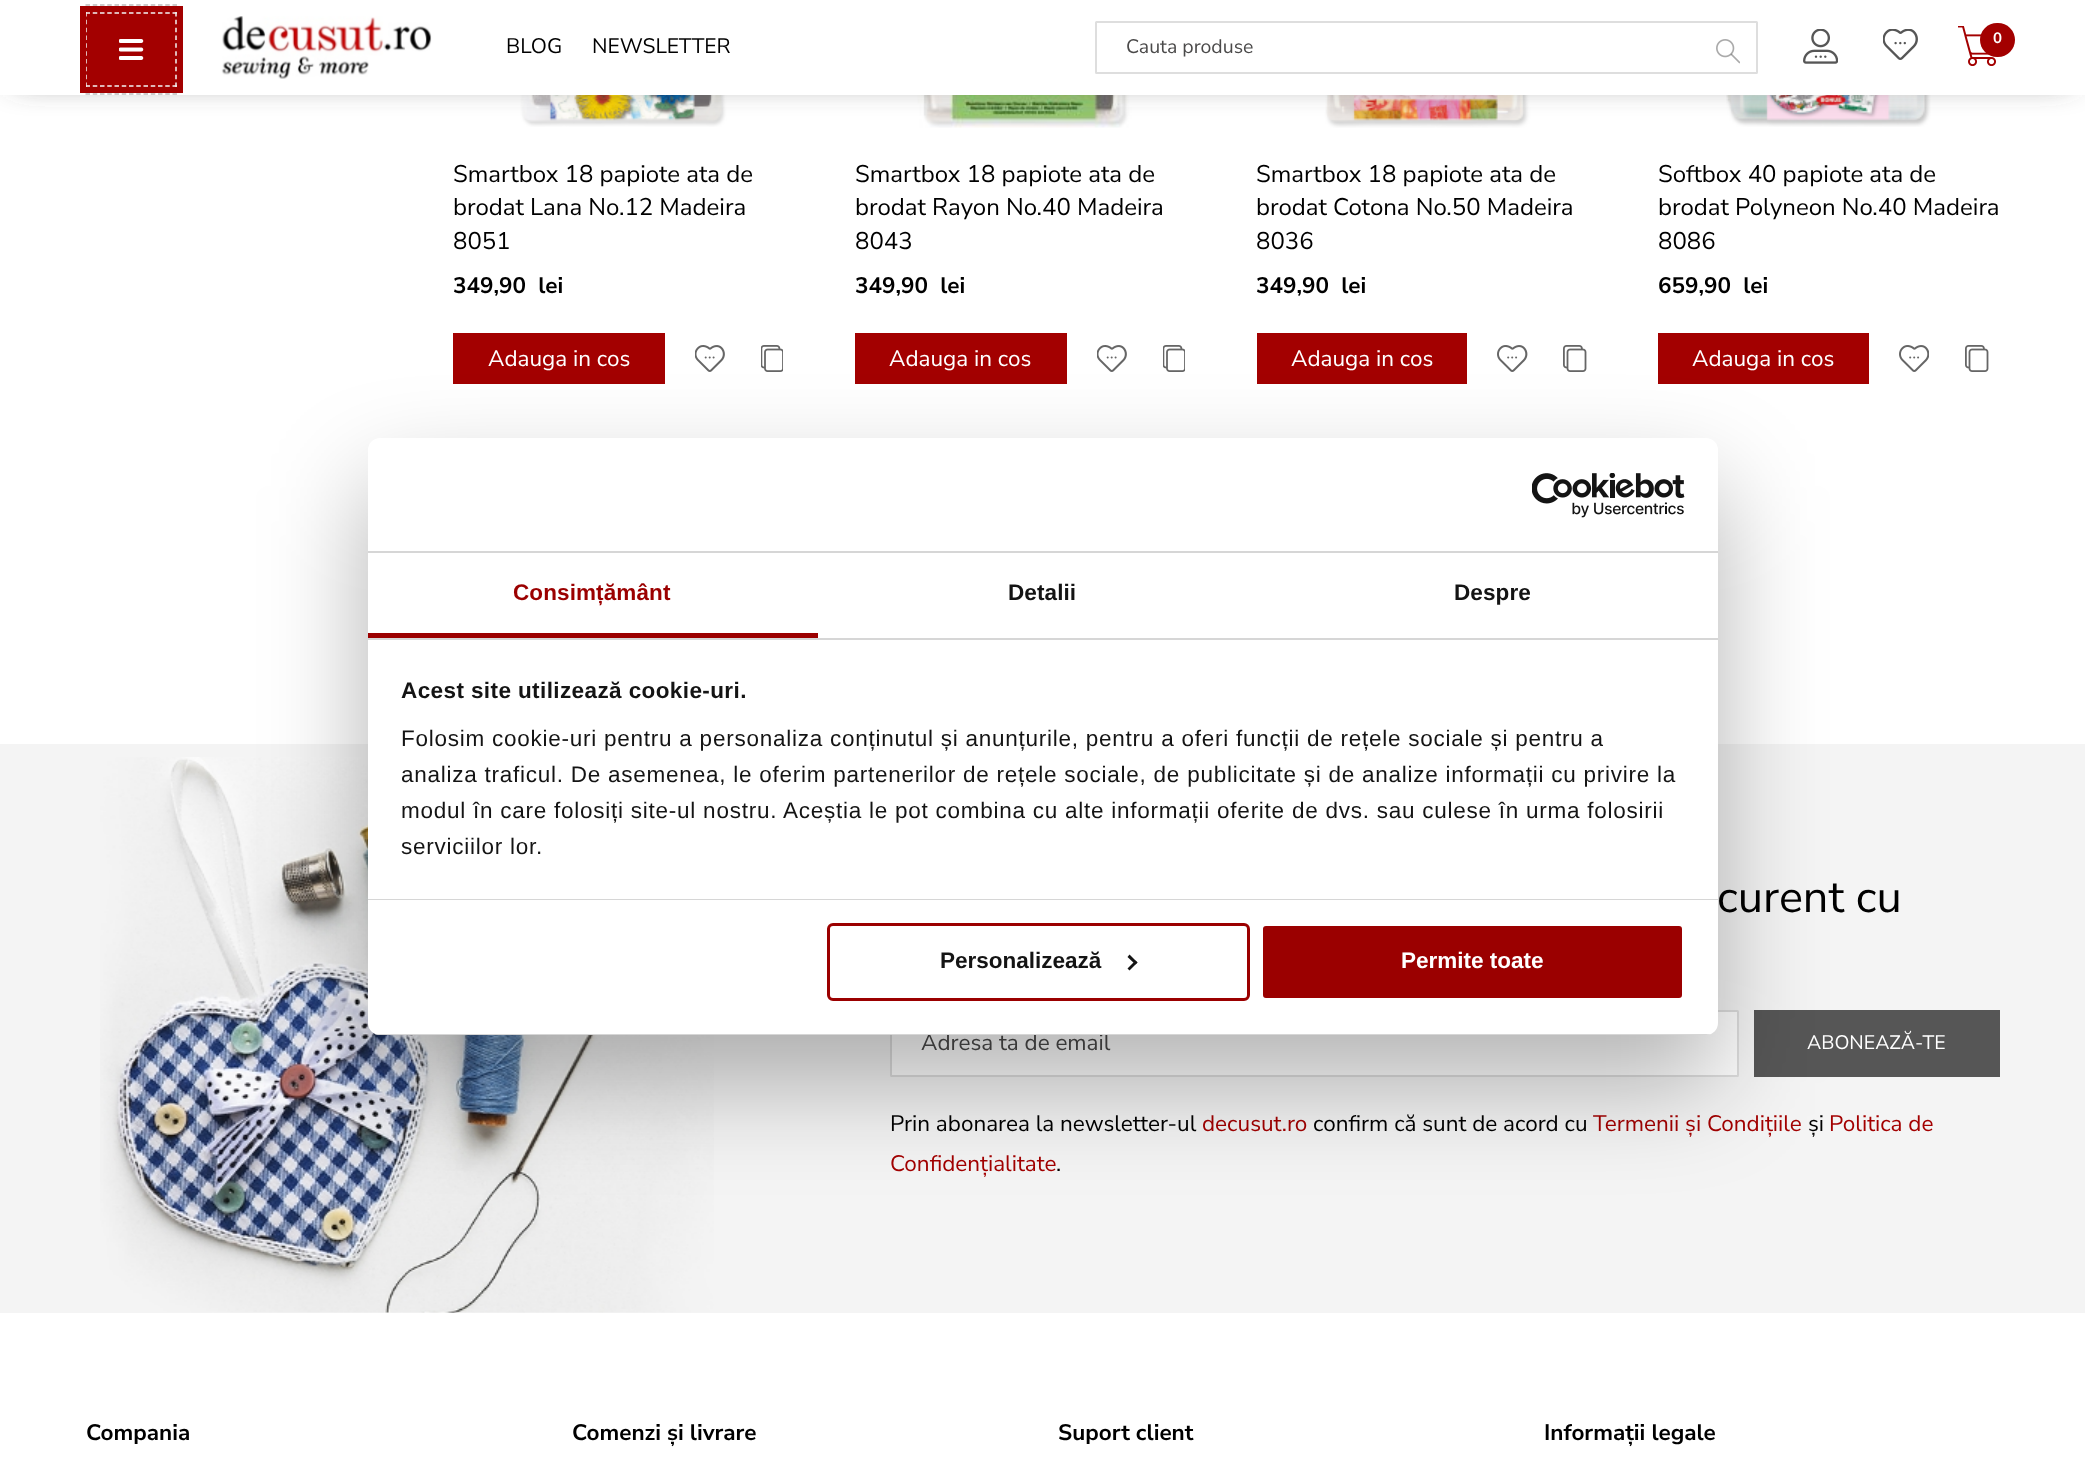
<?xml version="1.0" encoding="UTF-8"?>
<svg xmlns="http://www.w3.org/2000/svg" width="2085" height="1472">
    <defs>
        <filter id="blur1" x="-50%" y="-200%" width="200%" height="500%"><feGaussianBlur stdDeviation="16.5"/></filter>
        <filter id="blur2" x="-50%" y="-200%" width="200%" height="500%"><feGaussianBlur stdDeviation="51"/></filter>
        <clipPath id="clip1"><rect x="368" y="438" width="1350" height="597" rx="12"/></clipPath>
    </defs>
    <rect width="100%" height="100%" fill="#FFFFFF"/>
    <image x="519" y="95" width="212" height="32" href="img_07.png"/>
    <image x="917" y="95" width="218" height="33" href="img_10.png"/>
    <image x="1324" y="95" width="211" height="33" href="img_11.png"/>
    <image x="1726" y="95" width="206" height="32" href="img_14.png"/>
    <rect x="15" y="12" width="2055" height="65" fill="#4E4E4E" filter="url(#blur1)"/>
    <rect x="0" y="0" width="2085" height="95" fill="#FFFFFF"/>
    <path d="M 85.5 5 H 177" fill="none" stroke="#BDBDBD" stroke-width="1.5" stroke-dasharray="4.5 2.75"/>
    <path d="M 85.5 94 H 177" fill="none" stroke="#BDBDBD" stroke-width="1.5" stroke-dasharray="4.5 2.75"/>
    <rect x="86" y="12" width="91" height="75" fill="#A30000"/>
    <path d="M 85.5 13 H 177" fill="none" stroke="#F4F4F4" stroke-width="1.5" stroke-dasharray="4.5 2.75"/>
    <path d="M 176 12 V 87" fill="none" stroke="#F4F4F4" stroke-width="1.5" stroke-dasharray="4.5 3.33"/>
    <path d="M 85.5 86 H 177" fill="none" stroke="#F4F4F4" stroke-width="1.5" stroke-dasharray="4.5 2.75"/>
    <path d="M 86 12 V 87" fill="none" stroke="#F4F4F4" stroke-width="1.5" stroke-dasharray="4.5 3.33"/>
    <rect x="83" y="9" width="97" height="81" fill="none" stroke="#A30000" stroke-width="6"/>
    <image x="119" y="39" width="25" height="21" href="img_01.png"/>
    <image x="221" y="16" width="211" height="63" href="img_02.png"/>
    <text x="506" y="53" font-family="Nunito Sans" font-size="21" fill="#000000">BLOG</text>
    <text x="592" y="53" font-family="Nunito Sans" font-size="21" fill="#000000">NEWSLETTER</text>
    <rect x="1096" y="22" width="661" height="51" rx="0.5" fill="none" stroke="#DEDEDE" stroke-width="2"/>
    <text x="1126" y="53" font-family="Nunito Sans" font-size="19.5" fill="#4B4A4A">Cauta produse</text>
    <image x="1716" y="39" width="24" height="25" href="img_03.png"/>
    <image x="1803" y="29" width="35" height="35" href="img_04.png"/>
    <image x="1883" y="29" width="35" height="31" href="img_05.png"/>
    <image x="1958" y="26" width="38" height="40" href="img_06.png"/>
    <rect x="1980" y="23" width="35" height="34" rx="17" fill="#A30000"/>
    <text x="1993" y="43" font-family="Nunito Sans" font-size="15" font-weight="700" fill="#FFFFFF">0</text>
    <text font-family="Nunito Sans" font-size="24" fill="#000000">
        <tspan x="453" y="182">Smartbox 18 papiote ata de</tspan>
        <tspan x="453" y="215">brodat Lana No.12 Madeira</tspan>
        <tspan x="453" y="249">8051</tspan>
    </text>
    <text x="453" y="293" font-family="Nunito Sans" font-size="22.5" font-weight="700" fill="#000000" xml:space="preserve">349,90  lei</text>
    <rect x="453" y="333" width="212" height="51" fill="#A30000"/>
    <text x="488" y="366" font-family="Nunito Sans" font-size="22.5" fill="#FFFFFF">Adauga in cos</text>
    <image x="695" y="345" width="30" height="27" href="img_08.png"/>
    <image x="761" y="345" width="22" height="27" href="img_09.png"/>
    <text font-family="Nunito Sans" font-size="24" fill="#000000">
        <tspan x="855" y="182">Smartbox 18 papiote ata de</tspan>
        <tspan x="855" y="215">brodat Rayon No.40 Madeira</tspan>
        <tspan x="855" y="249">8043</tspan>
    </text>
    <text x="855" y="293" font-family="Nunito Sans" font-size="22.5" font-weight="700" fill="#000000" xml:space="preserve">349,90  lei</text>
    <rect x="855" y="333" width="212" height="51" fill="#A30000"/>
    <text x="889" y="366" font-family="Nunito Sans" font-size="22.5" fill="#FFFFFF">Adauga in cos</text>
    <image x="1097" y="345" width="30" height="27" href="img_08.png"/>
    <image x="1163" y="345" width="22" height="27" href="img_09.png"/>
    <text font-family="Nunito Sans" font-size="24" fill="#000000">
        <tspan x="1256" y="182">Smartbox 18 papiote ata de</tspan>
        <tspan x="1256" y="215">brodat Cotona No.50 Madeira</tspan>
        <tspan x="1256" y="249">8036</tspan>
    </text>
    <text x="1256" y="293" font-family="Nunito Sans" font-size="22.5" font-weight="700" fill="#000000" xml:space="preserve">349,90  lei</text>
    <rect x="1257" y="333" width="210" height="51" fill="#A30000"/>
    <text x="1291" y="366" font-family="Nunito Sans" font-size="22.5" fill="#FFFFFF">Adauga in cos</text>
    <image x="1497" y="345" width="31" height="27" href="img_12.png"/>
    <image x="1563" y="345" width="24" height="27" href="img_13.png"/>
    <text font-family="Nunito Sans" font-size="24" fill="#000000">
        <tspan x="1658" y="182">Softbox 40 papiote ata de</tspan>
        <tspan x="1658" y="215">brodat Polyneon No.40 Madeira</tspan>
        <tspan x="1658" y="249">8086</tspan>
    </text>
    <text x="1658" y="293" font-family="Nunito Sans" font-size="22.5" font-weight="700" fill="#000000" xml:space="preserve">659,90  lei</text>
    <rect x="1658" y="333" width="211" height="51" fill="#A30000"/>
    <text x="1692" y="366" font-family="Nunito Sans" font-size="22.5" fill="#FFFFFF">Adauga in cos</text>
    <image x="1899" y="345" width="30" height="27" href="img_15.png"/>
    <image x="1965" y="345" width="24" height="27" href="img_13.png"/>
    <rect x="0" y="744" width="2085" height="569" fill="#F4F4F4"/>
    <image x="100" y="757" width="614" height="556" href="img_16.png"/>
    <text x="1717" y="912" font-family="Nunito Sans" font-size="45" fill="#000000">curent cu</text>
    <rect x="891" y="1011" width="847" height="65" rx="0.5" fill="#FFFFFF" stroke="#DEDEDE" stroke-width="2"/>
    <text x="921" y="1050" font-family="Nunito Sans" font-size="22.5" fill="#4B4A4A">Adresa ta de email</text>
    <rect x="1754" y="1010" width="246" height="67" fill="#565656"/>
    <text x="1807" y="1049" font-family="Nunito Sans" font-size="19.5" fill="#FFFFFF">ABONEAZĂ-TE</text>
    <text x="890" y="1131" font-family="Nunito Sans" font-size="22.5" fill="#000000">Prin abonarea la newsletter-ul</text>
    <text x="1202" y="1131" font-family="Nunito Sans" font-size="22.5" fill="#A30000">decusut.ro</text>
    <text x="1313" y="1131" font-family="Nunito Sans" font-size="22.5" fill="#000000">confirm că sunt de acord cu</text>
    <text x="1593" y="1131" font-family="Nunito Sans" font-size="22.5" fill="#A30000">Termenii și Condițiile</text>
    <text x="1808" y="1131" font-family="Nunito Sans" font-size="22.5" fill="#000000">și</text>
    <text x="1829" y="1131" font-family="Nunito Sans" font-size="22.5" fill="#A30000">Politica de</text>
    <text x="890" y="1171" font-family="Nunito Sans" font-size="22.5" fill="#A30000">Confidențialitate</text>
    <text x="1056" y="1171" font-family="Nunito Sans" font-size="22.5" fill="#000000">.</text>
    <text x="86" y="1440" font-family="Nunito Sans" font-size="22.5" font-weight="700" fill="#000000">Compania</text>
    <text x="572" y="1440" font-family="Nunito Sans" font-size="22.5" font-weight="700" fill="#000000">Comenzi și livrare</text>
    <text x="1058" y="1440" font-family="Nunito Sans" font-size="22.5" font-weight="700" fill="#000000">Suport client</text>
    <text x="1544" y="1440" font-family="Nunito Sans" font-size="22.5" font-weight="700" fill="#000000">Informații legale</text>
    <rect x="368" y="486" width="1350" height="597" rx="12" fill="#000000" fill-opacity="0.3" filter="url(#blur2)"/>
    <rect x="368" y="438" width="1350" height="597" rx="12" fill="#FFFFFF"/>
    <rect x="368" y="551" width="1350" height="2" fill="#D6D6D6"/>
    <image x="1532" y="473" width="153" height="45" href="img_17.png"/>
    <rect x="368" y="638" width="1350" height="2" fill="#D6D6D6"/>
    <rect x="368" y="633" width="450" height="5" fill="#9B0000"/>
    <text x="513" y="600" font-family="Liberation Sans" font-size="22.5" font-weight="700" letter-spacing="0.1" fill="#9B0000">Consimțământ</text>
    <text x="1008" y="600" font-family="Liberation Sans" font-size="22.5" font-weight="700" letter-spacing="0.1" fill="#141414">Detalii</text>
    <text x="1454" y="600" font-family="Liberation Sans" font-size="22.5" font-weight="700" letter-spacing="0.1" fill="#141414">Despre</text>
    <rect x="368" y="899" width="1350" height="1" fill="#D6D6D6"/>
    <text x="401" y="698" font-family="Liberation Sans" font-size="22.5" font-weight="700" letter-spacing="0.4" fill="#141414">Acest site utilizează cookie-uri.</text>
    <text font-family="Liberation Sans" font-size="22.5" letter-spacing="0.75" fill="#141414">
        <tspan x="401" y="746">Folosim cookie-uri pentru a personaliza conținutul și anunțurile, pentru a oferi funcții de rețele sociale și pentru a</tspan>
        <tspan x="401" y="782">analiza traficul. De asemenea, le oferim partenerilor de rețele sociale, de publicitate și de analize informații cu privire la</tspan>
        <tspan x="401" y="818">modul în care folosiți site-ul nostru. Aceștia le pot combina cu alte informații oferite de dvs. sau culese în urma folosirii</tspan>
        <tspan x="401" y="854">serviciilor lor.</tspan>
    </text>
    <g clip-path="url(#clip1)">
        <rect x="368" y="1034" width="1350" height="1" fill="#D6D6D6"/>
    </g>
    <rect x="828.5" y="924.5" width="420" height="75" rx="4.5" fill="none" stroke="#9B0000" stroke-width="3"/>
    <text x="940" y="968" font-family="Liberation Sans" font-size="22.5" font-weight="700" fill="#141414">Personalizează</text>
    <path d="M 1129.5 954.5 L 1137.5 962.5 L 1135.5 964.5 L 1127.5 957 Z" fill="#141414"/>
    <path d="M 1135.5 960.5 L 1137.5 962.5 L 1129.5 970.5 L 1127.5 968.5 Z" fill="#141414"/>
    <rect x="1261.5" y="924.5" width="422" height="75" rx="4.5" fill="#9B0000" stroke="#FFFFFF" stroke-width="3"/>
    <text x="1401" y="968" font-family="Liberation Sans" font-size="22.5" font-weight="700" fill="#FFFFFF">Permite toate</text>
</svg>
